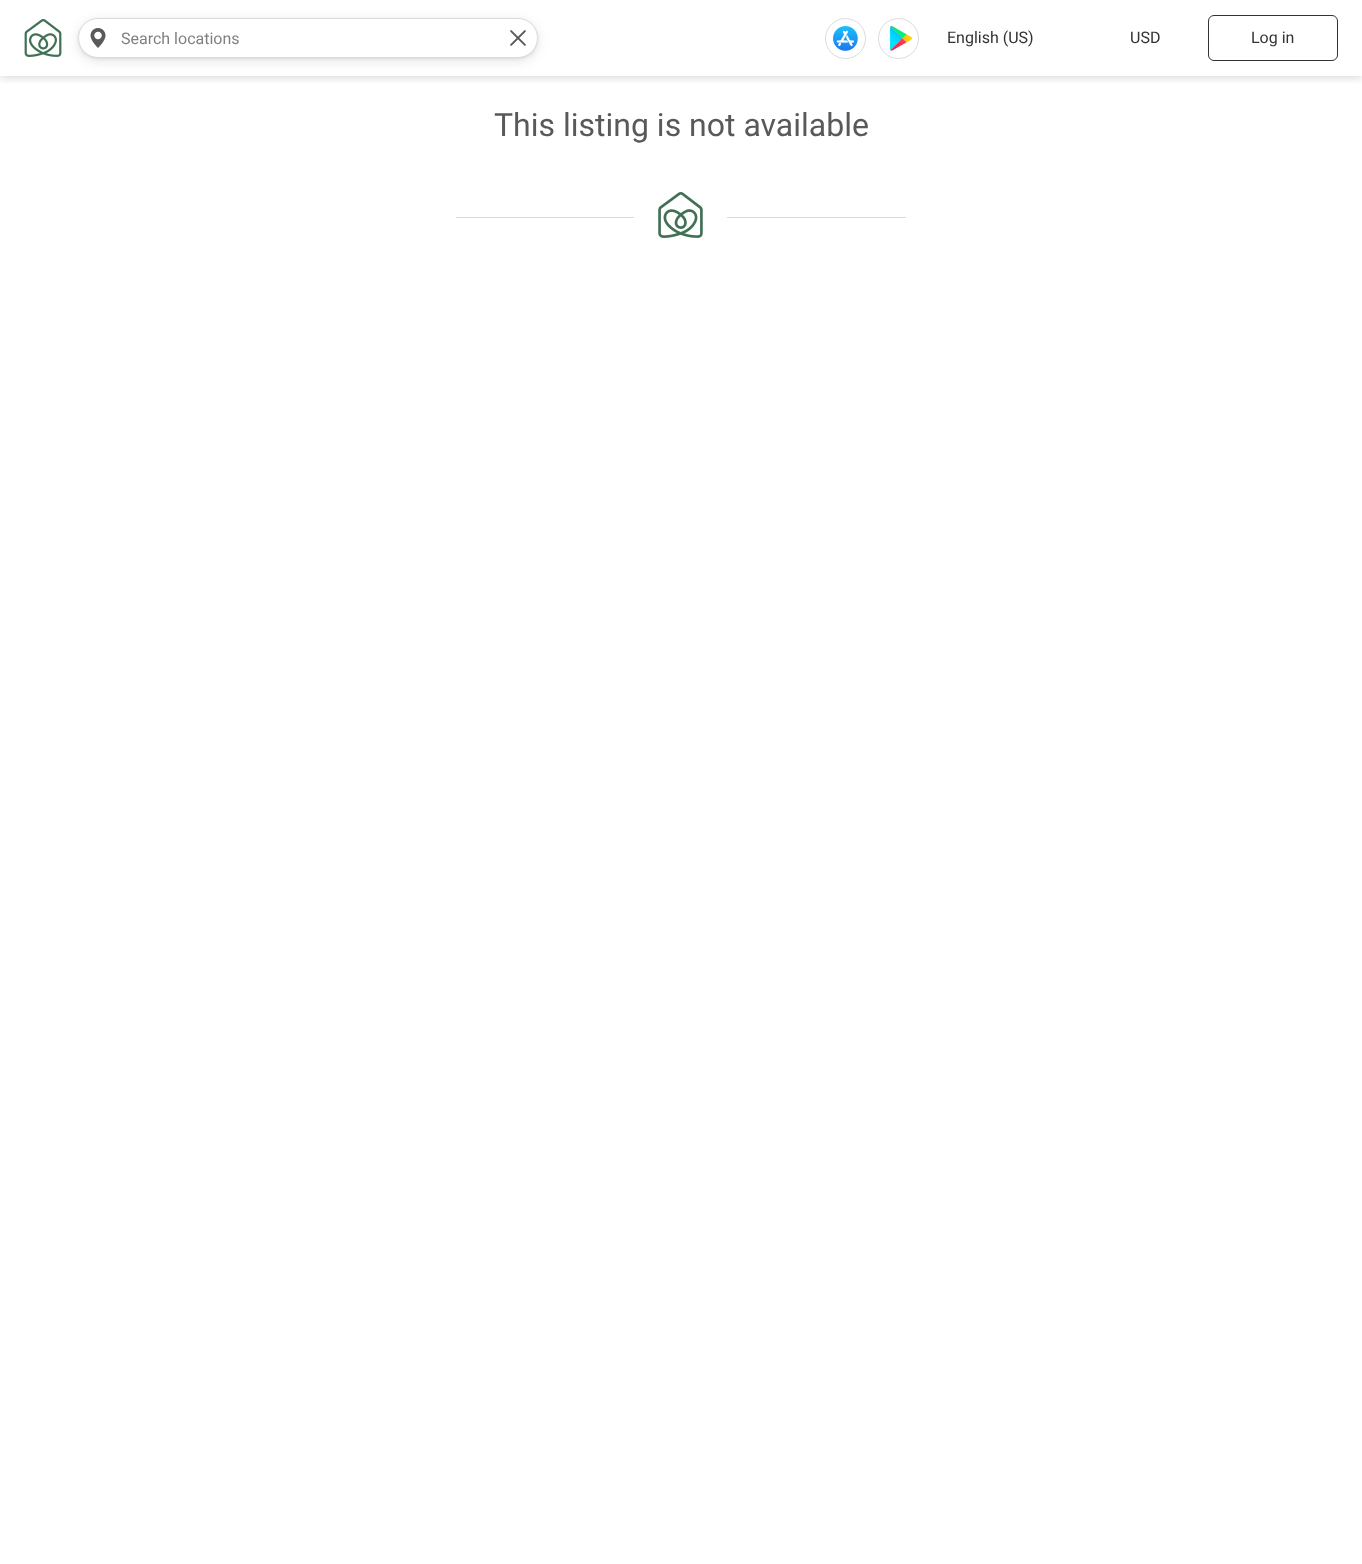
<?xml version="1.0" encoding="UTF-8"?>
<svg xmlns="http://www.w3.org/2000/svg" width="1362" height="1564">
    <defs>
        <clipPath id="clip1"><rect x="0" y="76" width="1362" height="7"/></clipPath>
        <filter id="blur1" x="-50%" y="-200%" width="200%" height="500%"><feGaussianBlur stdDeviation="4.5"/></filter>
        <filter id="blur2" x="-50%" y="-200%" width="200%" height="500%"><feGaussianBlur stdDeviation="1"/></filter>
        <filter id="blur3" x="-50%" y="-200%" width="200%" height="500%"><feGaussianBlur stdDeviation="6"/></filter>
    </defs>
    <rect width="100%" height="100%" fill="#FFFFFF"/>
    <g clip-path="url(#clip1)">
        <rect x="0" y="2" width="1362" height="76" fill="#000000" fill-opacity="0.15" filter="url(#blur1)"/>
    </g>
    <image x="24" y="19" width="38" height="38" href="img_01.png"/>
    <rect x="78" y="19" width="460" height="40" rx="20" fill="#000000" fill-opacity="0.08" filter="url(#blur2)"/>
    <rect x="78" y="21" width="460" height="40" rx="20" fill="#000000" fill-opacity="0.1" filter="url(#blur3)"/>
    <rect x="78.5" y="18.5" width="459" height="39" rx="19.5" fill="#FFFFFF" stroke="#DBDBDB"/>
    <image x="90" y="28" width="16" height="20" href="img_02.png"/>
    <text x="121" y="44" font-family="Roboto" font-size="16" fill="#808080">Search locations</text>
    <image x="510" y="30" width="16" height="16" href="img_03.png"/>
    <circle cx="845.5" cy="38.5" r="20" fill="none" stroke="#DBDBDB"/>
    <image x="833" y="26" width="25" height="25" href="img_04.png"/>
    <circle cx="898.5" cy="38.5" r="20" fill="none" stroke="#DBDBDB"/>
    <image x="890" y="26" width="23" height="25" href="img_05.png"/>
    <text x="947" y="43" font-family="Roboto" font-size="16" fill="#333333">English (US)</text>
    <text x="1130" y="43" font-family="Roboto" font-size="16" fill="#333333">USD</text>
    <rect x="1208.5" y="15.5" width="129" height="45" rx="5.5" fill="none" stroke="#333333"/>
    <text x="1251" y="43" font-family="Roboto" font-size="16" fill="#333333">Log in</text>
    <text x="494" y="136" font-family="Roboto" font-size="32" fill="#595959">This listing is not available</text>
    <rect x="456" y="217" width="178" height="1" fill="#DBDBDB"/>
    <image x="658" y="192" width="45" height="46" href="img_06.png"/>
    <rect x="727" y="217" width="179" height="1" fill="#DBDBDB"/>
</svg>
